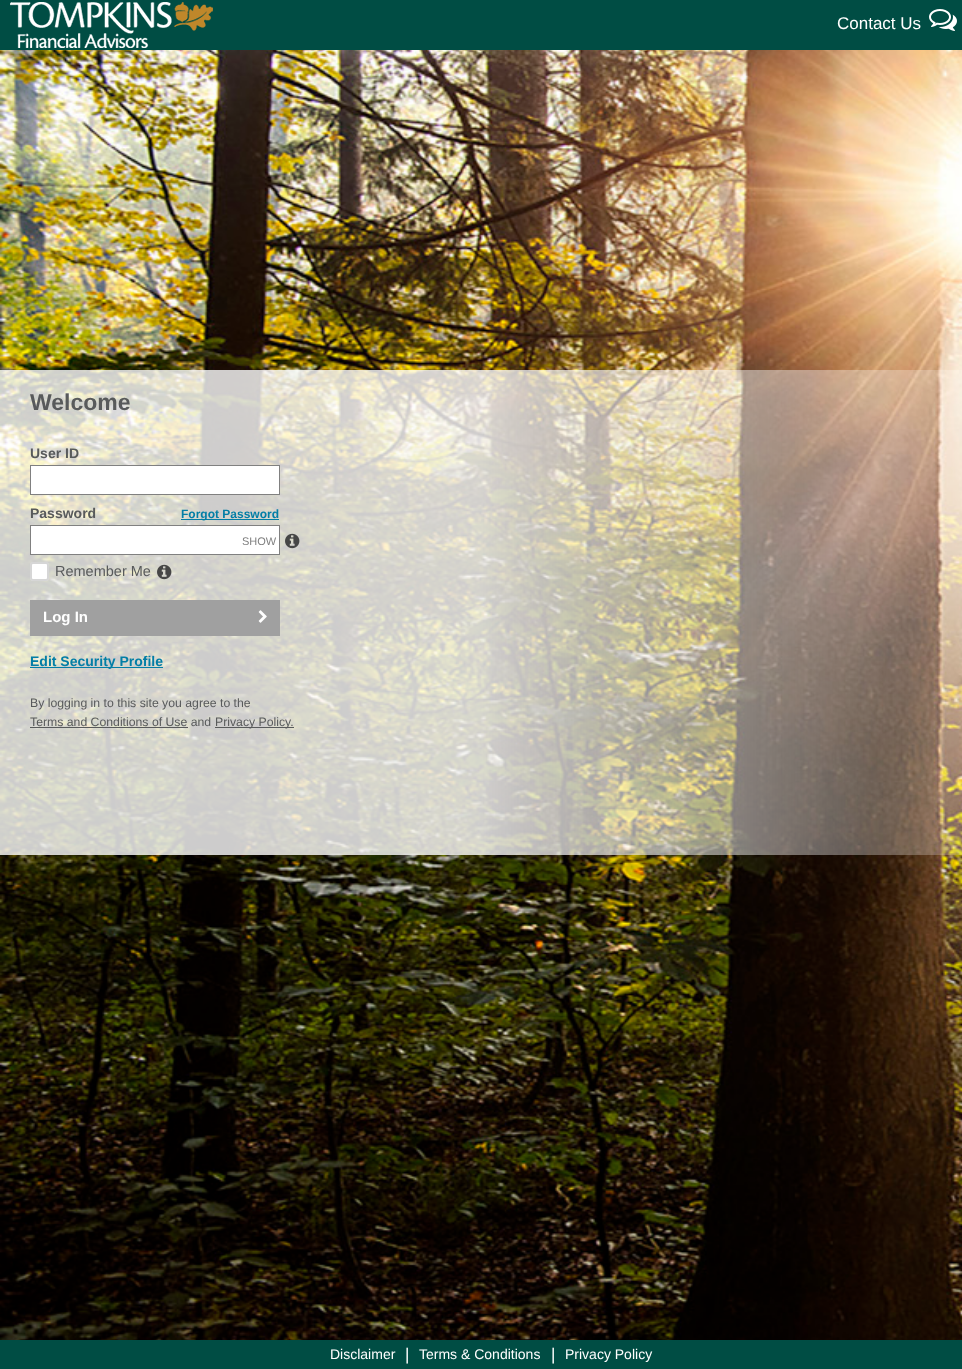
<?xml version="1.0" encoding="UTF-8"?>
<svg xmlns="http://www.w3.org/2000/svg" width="962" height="1369">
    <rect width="100%" height="100%" fill="#FFFFFF"/>
    <image x="0" y="50" width="962" height="1290" href="img_01.png"/>
    <rect x="0" y="0" width="962" height="50" fill="#004D44"/>
    <image x="10" y="2" width="203" height="46" href="img_02.png"/>
    <text x="837" y="29" font-family="Liberation Sans" font-size="17" fill="#FFFFFF">Contact Us</text>
    <image x="929" y="9" width="28" height="22" href="img_03.png"/>
    <text x="30" y="410" font-family="Liberation Sans" font-size="23" font-weight="700" fill="#585A5B">Welcome</text>
    <text x="30" y="458" font-family="Liberation Sans" font-size="14" font-weight="700" fill="#585A5B">User ID</text>
    <rect x="30.5" y="465.5" width="249" height="29" fill="#FFFFFF" stroke="#808080"/>
    <text x="30" y="518" font-family="Liberation Sans" font-size="14" font-weight="700" fill="#585A5B">Password</text>
    <rect x="181" y="519" width="98" height="1" fill="#037EA6"/>
    <text x="181" y="518" font-family="Liberation Sans" font-size="12" font-weight="700" fill="#037EA6">Forgot Password</text>
    <rect x="30.5" y="525.5" width="249" height="29" fill="#FFFFFF" stroke="#808080"/>
    <image x="285" y="533" width="15" height="16" href="img_04.png"/>
    <text x="242" y="545" font-family="Liberation Sans" font-size="11" fill="#808080">SHOW</text>
    <rect x="30" y="562" width="19" height="19" rx="3" fill="#FFFFFF"/>
    <rect x="31" y="563" width="17" height="17" rx="2" fill="none" stroke="#767676" stroke-opacity="0.3" stroke-width="2"/>
    <text x="55" y="576" font-family="Liberation Sans" font-size="14.5" fill="#585A5B">Remember Me</text>
    <image x="157" y="564" width="15" height="16" href="img_05.png"/>
    <rect x="30" y="600" width="250" height="36" fill="#A0A0A0"/>
    <text x="43" y="622" font-family="Liberation Sans" font-size="15" font-weight="700" fill="#FFFFFF">Log In</text>
    <image x="258" y="610" width="9" height="13" href="img_06.png"/>
    <rect x="30" y="667" width="133" height="1" fill="#037EA6"/>
    <text x="30" y="666" font-family="Liberation Sans" font-size="14" font-weight="700" fill="#037EA6">Edit Security Profile</text>
    <text font-family="Liberation Sans" font-size="12.25" fill="#585A5B">
        <tspan x="30" y="707">By logging in to this site you agree to the</tspan>
        <tspan x="30" y="726">Terms and Conditions of Use and</tspan>
    </text>
    <rect x="30" y="727" width="158" height="1" fill="#585A5B"/>
    <rect x="215" y="727" width="79" height="1" fill="#585A5B"/>
    <text x="215" y="726" font-family="Liberation Sans" font-size="12.25" fill="#585A5B">Privacy Policy.</text>
    <rect x="0" y="1340" width="962" height="29" fill="#004D44"/>
    <text x="330" y="1359" font-family="Liberation Sans" font-size="14" fill="#FFFFFF">Disclaimer</text>
    <text x="405" y="1360" font-family="Liberation Sans" font-size="17" fill="#FFFFFF">|</text>
    <text x="419" y="1359" font-family="Liberation Sans" font-size="14" fill="#FFFFFF">Terms &amp; Conditions</text>
    <text x="551" y="1360" font-family="Liberation Sans" font-size="17" fill="#FFFFFF">|</text>
    <text x="565" y="1359" font-family="Liberation Sans" font-size="14" fill="#FFFFFF">Privacy Policy</text>
</svg>
